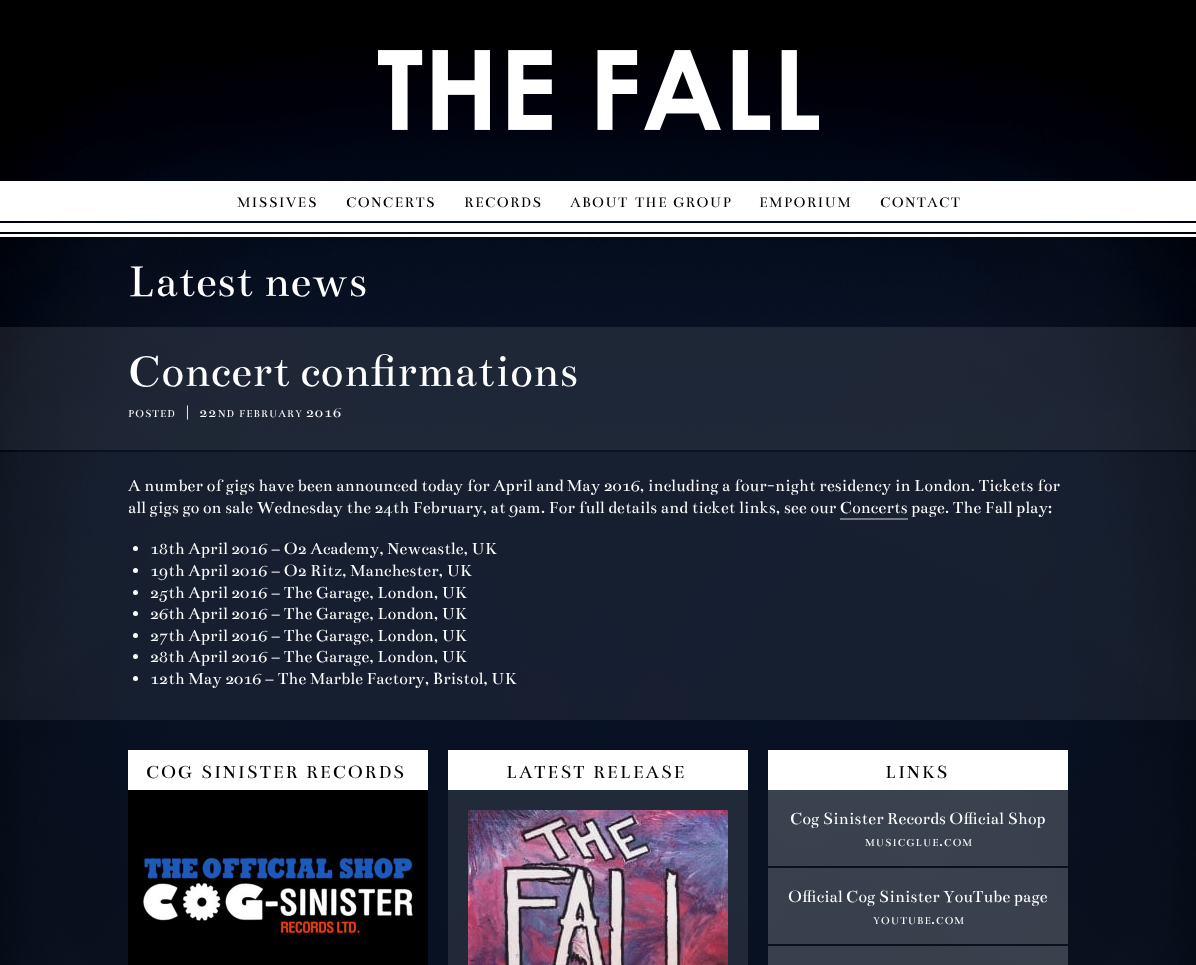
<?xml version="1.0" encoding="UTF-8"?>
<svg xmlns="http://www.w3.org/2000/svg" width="1196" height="965">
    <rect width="100%" height="100%" fill="#FFFFFF"/>
    <image x="0" y="0" width="1196" height="965" href="img_01.png"/>
    <image x="378" y="50" width="441" height="80" href="img_02.png"/>
    <rect x="0" y="223" width="1196" height="9" fill="#FFFFFF"/>
    <rect x="0" y="181" width="1196" height="40" fill="#FFFFFF"/>
    <text x="237" y="207" font-family="Bentham" font-size="15.5" letter-spacing="1.25" fill="#000000">MISSIVES</text>
    <text x="346" y="207" font-family="Bentham" font-size="15.5" letter-spacing="1.25" fill="#000000">CONCERTS</text>
    <text x="464" y="207" font-family="Bentham" font-size="15.5" letter-spacing="1.25" fill="#000000">RECORDS</text>
    <text x="570" y="207" font-family="Bentham" font-size="15.5" letter-spacing="1.25" fill="#000000">ABOUT</text>
    <text x="635" y="207" font-family="Bentham" font-size="15.5" letter-spacing="1.25" fill="#000000">THE</text>
    <text x="673" y="207" font-family="Bentham" font-size="15.5" letter-spacing="1.25" fill="#000000">GROUP</text>
    <text x="759" y="207" font-family="Bentham" font-size="15.5" letter-spacing="1.25" fill="#000000">EMPORIUM</text>
    <text x="880" y="207" font-family="Bentham" font-size="15.5" letter-spacing="1.25" fill="#000000">CONTACT</text>
    <rect x="0" y="234" width="1196" height="3" fill="#FFFFFF"/>
    <text x="128" y="296" font-family="Bentham" font-size="48" fill="#FFFFFF">Latest news</text>
    <rect x="0" y="327" width="1196" height="123" fill="#FFFFFF" fill-opacity="0.09"/>
    <text x="128" y="386" font-family="Bentham" font-size="48" fill="#FFFFFF">Concert confirmations</text>
    <text x="128" y="417" font-family="Bentham" font-size="11.25" letter-spacing="1" fill="#FFFFFF">POSTED</text>
    <text x="185" y="417" font-family="Bentham" font-size="16" letter-spacing="1" fill="#FFFFFF" xml:space="preserve">|  22</text>
    <text x="218" y="417" font-family="Bentham" font-size="11.25" letter-spacing="1" fill="#FFFFFF">ND</text>
    <text x="239" y="417" font-family="Bentham" font-size="11.25" letter-spacing="1" fill="#FFFFFF">FEBRUARY</text>
    <text x="306" y="417" font-family="Bentham" font-size="16" letter-spacing="1" fill="#FFFFFF">2016</text>
    <rect x="0" y="452" width="1196" height="268" fill="#FFFFFF" fill-opacity="0.06"/>
    <text font-family="Bentham" font-size="18" fill="#FFFFFF">
        <tspan x="128" y="491">A number of gigs have been announced today for April and May 2016, including a four-night residency in London. Tickets for</tspan>
        <tspan x="128" y="513">all gigs go on sale Wednesday the 24th February, at 9am. For full details and ticket links, see our Concerts page. The Fall play:</tspan>
    </text>
    <rect x="840" y="518" width="68" height="2" fill="#747A84"/>
    <circle cx="135.5" cy="548.5" r="2.5" fill="#FFFFFF"/>
    <text x="150" y="554" font-family="Bentham" font-size="18" fill="#FFFFFF">18th April 2016 – O2 Academy, Newcastle, UK</text>
    <circle cx="135.5" cy="570.5" r="2.5" fill="#FFFFFF"/>
    <text x="150" y="576" font-family="Bentham" font-size="18" fill="#FFFFFF">19th April 2016 – O2 Ritz, Manchester, UK</text>
    <circle cx="135.5" cy="592.5" r="2.5" fill="#FFFFFF"/>
    <text x="150" y="598" font-family="Bentham" font-size="18" fill="#FFFFFF">25th April 2016 – The Garage, London, UK</text>
    <circle cx="135.5" cy="613.5" r="2.5" fill="#FFFFFF"/>
    <text x="150" y="619" font-family="Bentham" font-size="18" fill="#FFFFFF">26th April 2016 – The Garage, London, UK</text>
    <circle cx="135.5" cy="635.5" r="2.5" fill="#FFFFFF"/>
    <text x="150" y="641" font-family="Bentham" font-size="18" fill="#FFFFFF">27th April 2016 – The Garage, London, UK</text>
    <circle cx="135.5" cy="656.5" r="2.5" fill="#FFFFFF"/>
    <text x="150" y="662" font-family="Bentham" font-size="18" fill="#FFFFFF">28th April 2016 – The Garage, London, UK</text>
    <circle cx="135.5" cy="678.5" r="2.5" fill="#FFFFFF"/>
    <text x="150" y="684" font-family="Bentham" font-size="18" fill="#FFFFFF">12th May 2016 – The Marble Factory, Bristol, UK</text>
    <rect x="128" y="750" width="300" height="40" fill="#FFFFFF"/>
    <text x="146" y="778" font-family="Bentham" font-size="19.5" letter-spacing="1.75" fill="#000000">COG</text>
    <text x="201" y="778" font-family="Bentham" font-size="19.5" letter-spacing="1.75" fill="#000000">SINISTER</text>
    <text x="306" y="778" font-family="Bentham" font-size="19.5" letter-spacing="1.75" fill="#000000">RECORDS</text>
    <image x="128" y="790" width="300" height="175" href="img_03.png"/>
    <rect x="448" y="750" width="300" height="40" fill="#FFFFFF"/>
    <text x="506" y="778" font-family="Bentham" font-size="19.5" letter-spacing="1.75" fill="#000000">LATEST</text>
    <text x="593" y="778" font-family="Bentham" font-size="19.5" letter-spacing="1.75" fill="#000000">RELEASE</text>
    <rect x="448" y="790" width="300" height="175" fill="#FFFFFF" fill-opacity="0.1"/>
    <image x="468" y="810" width="260" height="155" href="img_04.png"/>
    <rect x="768" y="750" width="300" height="40" fill="#FFFFFF"/>
    <text x="885" y="778" font-family="Bentham" font-size="19.5" letter-spacing="1.75" fill="#000000">LINKS</text>
    <rect x="768" y="790" width="300" height="76" fill="#FFFFFF" fill-opacity="0.2"/>
    <text x="790" y="824" font-family="Bentham" font-size="18" fill="#FFFFFF">Cog Sinister Records Official Shop</text>
    <text x="865" y="846" font-family="Bentham" font-size="11.25" letter-spacing="1" fill="#FFFFFF">MUSICGLUE</text>
    <text x="939" y="846" font-family="Bentham" font-size="16" letter-spacing="1" fill="#FFFFFF">.</text>
    <text x="944" y="846" font-family="Bentham" font-size="11.25" letter-spacing="1" fill="#FFFFFF">COM</text>
    <rect x="768" y="868" width="300" height="76" fill="#FFFFFF" fill-opacity="0.2"/>
    <text x="788" y="902" font-family="Bentham" font-size="18" fill="#FFFFFF">Official Cog Sinister YouTube page</text>
    <text x="873" y="924" font-family="Bentham" font-size="11.25" letter-spacing="1" fill="#FFFFFF">YOUTUBE</text>
    <text x="931" y="924" font-family="Bentham" font-size="16" letter-spacing="1" fill="#FFFFFF">.</text>
    <text x="936" y="924" font-family="Bentham" font-size="11.25" letter-spacing="1" fill="#FFFFFF">COM</text>
    <rect x="768" y="946" width="300" height="19" fill="#FFFFFF" fill-opacity="0.2"/>
</svg>
